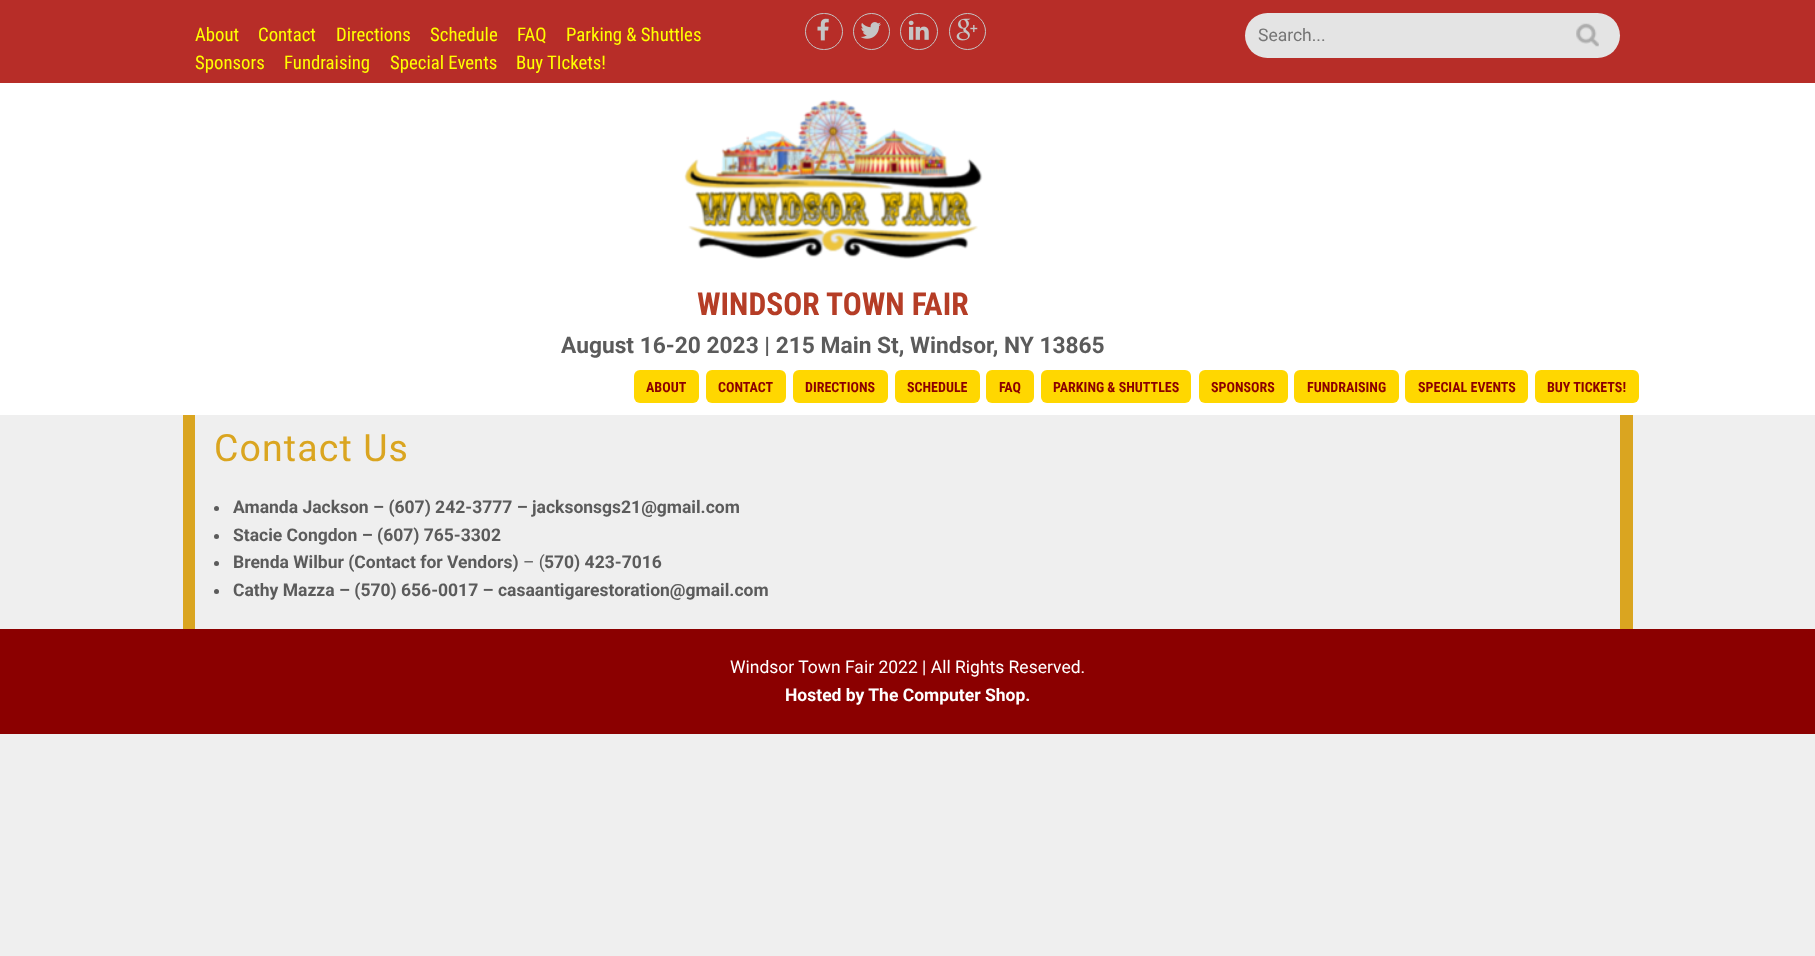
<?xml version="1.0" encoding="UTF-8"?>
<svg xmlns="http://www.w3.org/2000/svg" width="1815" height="956">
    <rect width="100%" height="100%" fill="#EFEFEF"/>
    <rect x="0" y="0" width="1815" height="83" fill="#B72D28"/>
    <text x="195" y="41" font-family="Roboto Condensed" font-size="18.75" fill="#FFFF00">About</text>
    <text x="258" y="41" font-family="Roboto Condensed" font-size="18.75" fill="#FFFF00">Contact</text>
    <text x="336" y="41" font-family="Roboto Condensed" font-size="18.75" fill="#FFFF00">Directions</text>
    <text x="430" y="41" font-family="Roboto Condensed" font-size="18.75" fill="#FFFF00">Schedule</text>
    <text x="517" y="41" font-family="Roboto Condensed" font-size="18.75" fill="#FFFF00">FAQ</text>
    <text x="566" y="41" font-family="Roboto Condensed" font-size="18.75" fill="#FFFF00">Parking &amp; Shuttles</text>
    <text x="195" y="69" font-family="Roboto Condensed" font-size="18.75" fill="#FFFF00">Sponsors</text>
    <text x="284" y="69" font-family="Roboto Condensed" font-size="18.75" fill="#FFFF00">Fundraising</text>
    <text x="390" y="69" font-family="Roboto Condensed" font-size="18.75" fill="#FFFF00">Special Events</text>
    <text x="516" y="69" font-family="Roboto Condensed" font-size="18.75" fill="#FFFF00">Buy TIckets!</text>
    <rect x="805.5" y="13.5" width="37" height="36" rx="18" fill="none" stroke="#C5C5C5"/>
    <image x="817" y="18" width="12" height="23" href="img_01.png"/>
    <circle cx="871.5" cy="31.5" r="18" fill="none" stroke="#C5C5C5"/>
    <image x="860" y="22" width="21" height="17" href="img_02.png"/>
    <rect x="900.5" y="13.5" width="37" height="36" rx="18" fill="none" stroke="#C5C5C5"/>
    <image x="908" y="20" width="21" height="20" href="img_03.png"/>
    <circle cx="967.5" cy="31.5" r="18" fill="none" stroke="#C5C5C5"/>
    <image x="956" y="18" width="22" height="23" href="img_04.png"/>
    <rect x="1245" y="13" width="375" height="45" rx="22.5" fill="#E4E4E4"/>
    <text x="1258" y="41" font-family="Roboto" font-size="17.5" fill="#757575">Search...</text>
    <image x="1576" y="23" width="23" height="24" href="img_05.png"/>
    <rect x="0" y="83" width="1815" height="332" fill="#FFFFFF"/>
    <image x="684" y="99" width="299" height="160" href="img_06.png"/>
    <text x="697" y="315" font-family="Roboto Condensed" font-size="31.5" font-weight="700" fill="#B53D26">WINDSOR TOWN FAIR</text>
    <text x="561" y="353" font-family="Roboto" font-size="22.75" font-weight="700" fill="#5B5B5B">August 16-20 2023 | 215 Main St, Windsor, NY 13865</text>
    <rect x="634" y="370" width="65" height="33" rx="6" fill="#FFD700"/>
    <text x="646" y="392" font-family="Roboto Condensed" font-size="14" font-weight="700" fill="#8B0000">ABOUT</text>
    <rect x="706" y="370" width="80" height="33" rx="6" fill="#FFD700"/>
    <text x="718" y="392" font-family="Roboto Condensed" font-size="14" font-weight="700" fill="#8B0000">CONTACT</text>
    <rect x="793" y="370" width="95" height="33" rx="6" fill="#FFD700"/>
    <text x="805" y="392" font-family="Roboto Condensed" font-size="14" font-weight="700" fill="#8B0000">DIRECTIONS</text>
    <rect x="895" y="370" width="85" height="33" rx="6" fill="#FFD700"/>
    <text x="907" y="392" font-family="Roboto Condensed" font-size="14" font-weight="700" fill="#8B0000">SCHEDULE</text>
    <rect x="986" y="370" width="48" height="33" rx="6" fill="#FFD700"/>
    <text x="999" y="392" font-family="Roboto Condensed" font-size="14" font-weight="700" fill="#8B0000">FAQ</text>
    <rect x="1041" y="370" width="150" height="33" rx="6" fill="#FFD700"/>
    <text x="1053" y="392" font-family="Roboto Condensed" font-size="14" font-weight="700" fill="#8B0000">PARKING &amp; SHUTTLES</text>
    <rect x="1199" y="370" width="89" height="33" rx="6" fill="#FFD700"/>
    <text x="1211" y="392" font-family="Roboto Condensed" font-size="14" font-weight="700" fill="#8B0000">SPONSORS</text>
    <rect x="1294" y="370" width="105" height="33" rx="6" fill="#FFD700"/>
    <text x="1307" y="392" font-family="Roboto Condensed" font-size="14" font-weight="700" fill="#8B0000">FUNDRAISING</text>
    <rect x="1405" y="370" width="123" height="33" rx="6" fill="#FFD700"/>
    <text x="1418" y="392" font-family="Roboto Condensed" font-size="14" font-weight="700" fill="#8B0000">SPECIAL EVENTS</text>
    <rect x="1535" y="370" width="104" height="33" rx="6" fill="#FFD700"/>
    <text x="1547" y="392" font-family="Roboto Condensed" font-size="14" font-weight="700" fill="#8B0000">BUY TICKETS!</text>
    <rect x="1620" y="415" width="13" height="214" fill="#DAA520"/>
    <rect x="183" y="415" width="12" height="214" fill="#DAA520"/>
    <text x="214" y="461" font-family="Roboto" font-size="37.5" letter-spacing="1.1" fill="#DAA520">Contact Us</text>
    <circle cx="216.5" cy="508.5" r="2.5" fill="#5B5B5B"/>
    <text x="233" y="513" font-family="Roboto" font-size="17.5" font-weight="700" fill="#5B5B5B">Amanda Jackson – (607) 242-3777 – jacksonsgs21@gmail.com</text>
    <circle cx="216.5" cy="536.5" r="2.5" fill="#5B5B5B"/>
    <text x="233" y="541" font-family="Roboto" font-size="17.5" font-weight="700" fill="#5B5B5B">Stacie Congdon – (607) 765-3302</text>
    <circle cx="216.5" cy="563.5" r="2.5" fill="#5B5B5B"/>
    <text x="233" y="568" font-family="Roboto" font-size="17.5" font-weight="700" fill="#5B5B5B">Brenda Wilbur (Contact for Vendors)</text>
    <text x="523" y="568" font-family="Roboto" font-size="17.5" fill="#5B5B5B">– (</text>
    <text x="544" y="568" font-family="Roboto" font-size="17.5" font-weight="700" fill="#5B5B5B">570) 423-7016</text>
    <circle cx="216.5" cy="591.5" r="2.5" fill="#5B5B5B"/>
    <text x="233" y="596" font-family="Roboto" font-size="17.5" font-weight="700" fill="#5B5B5B">Cathy Mazza – (570) 656-0017 – casaantigarestoration@gmail.com</text>
    <rect x="0" y="629" width="1815" height="105" fill="#8B0000"/>
    <text x="730" y="673" font-family="Roboto" font-size="17.5" fill="#FFFFFF">Windsor Town Fair 2022 | All Rights Reserved.</text>
    <text x="785" y="701" font-family="Roboto" font-size="17.5" font-weight="700" fill="#FFFFFF">Hosted by The Computer Shop.</text>
</svg>
